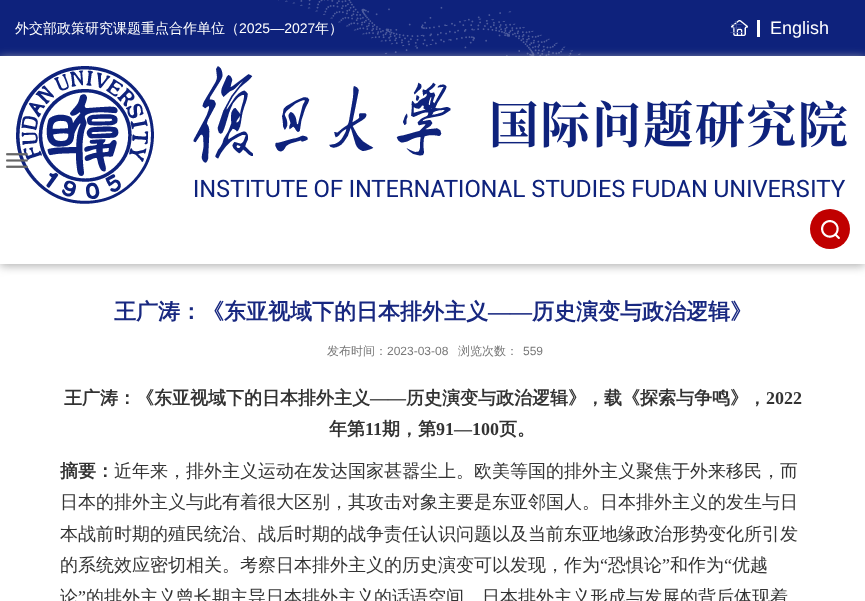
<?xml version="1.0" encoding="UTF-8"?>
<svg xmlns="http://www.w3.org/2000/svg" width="865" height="601">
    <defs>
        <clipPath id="clip1"><path d="M 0 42 H 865 V 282 H 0 Z M 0 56 H 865 V 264 H 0 Z" clip-rule="evenodd"/></clipPath>
        <filter id="blur1" x="-50%" y="-200%" width="200%" height="500%"><feGaussianBlur stdDeviation="5"/></filter>
    </defs>
    <rect width="100%" height="100%" fill="#FFFFFF"/>
    <rect x="0" y="0" width="865" height="56" fill="#0E227C"/>
    <image x="278" y="0" width="303" height="56" href="img_01.png"/>
    <text x="15" y="33" font-family="WenQuanYi Zen Hei" font-size="14" font-weight="500" fill="#FFFFFF">外交部政策研究课题重点合作单位（</text>
    <text x="239" y="33" font-family="Liberation Sans" font-size="14" fill="#FFFFFF">2025—2027</text>
    <text x="315" y="33" font-family="WenQuanYi Zen Hei" font-size="14" font-weight="500" fill="#FFFFFF">年）</text>
    <image x="731" y="20" width="17" height="16" href="img_02.png"/>
    <text x="730" y="32" font-family="WenQuanYi Zen Hei" font-size="13" font-weight="500" fill="#45549A">主</text>
    <rect x="757" y="20" width="3" height="17" fill="#FFFFFF"/>
    <text x="770" y="34" font-family="Liberation Sans" font-size="18" fill="#FFFFFF">English</text>
    <g clip-path="url(#clip1)">
        <rect x="0" y="58" width="865" height="208" fill="#B0B0B0" filter="url(#blur1)"/>
    </g>
    <image x="16" y="66" width="831" height="138" href="img_03.png"/>
    <image x="6" y="153" width="22" height="15" href="img_04.png"/>
    <circle cx="830" cy="229" r="20" fill="#C00000"/>
    <image x="821" y="220" width="19" height="19" href="img_05.png"/>
    <text x="114" y="319" font-family="WenQuanYi Zen Hei" font-size="22" font-weight="700" fill="#182880">王广涛：《东亚视域下的日本排外主义</text>
    <text x="488" y="319" font-family="Liberation Serif" font-size="22" font-weight="700" fill="#182880">——</text>
    <text x="532" y="319" font-family="WenQuanYi Zen Hei" font-size="22" font-weight="700" fill="#182880">历史演变与政治逻辑》</text>
    <text x="327" y="355" font-family="WenQuanYi Zen Hei" font-size="12" font-weight="500" fill="#787878">发布时间：</text>
    <text x="387" y="355" font-family="Liberation Sans" font-size="12" fill="#787878">2023-03-08</text>
    <text x="458" y="355" font-family="WenQuanYi Zen Hei" font-size="12" font-weight="500" fill="#787878">浏览次数：</text>
    <text x="523" y="355" font-family="Liberation Sans" font-size="12" fill="#787878">559</text>
    <text x="64" y="404" font-family="WenQuanYi Zen Hei" font-size="18" font-weight="700" fill="#333333">王广涛：《东亚视域下的日本排外主义</text>
    <text x="370" y="404" font-family="Liberation Serif" font-size="18" font-weight="700" fill="#333333">——</text>
    <text x="406" y="404" font-family="WenQuanYi Zen Hei" font-size="18" font-weight="700" fill="#333333">历史演变与政治逻辑》，载《探索与争鸣》，</text>
    <text x="766" y="404" font-family="Liberation Serif" font-size="18" font-weight="700" fill="#333333">2022</text>
    <text x="329" y="435" font-family="WenQuanYi Zen Hei" font-size="18" font-weight="700" fill="#333333">年第</text>
    <text x="365" y="435" font-family="Liberation Serif" font-size="18" font-weight="700" fill="#333333">11</text>
    <text x="382" y="435" font-family="WenQuanYi Zen Hei" font-size="18" font-weight="700" fill="#333333">期，第</text>
    <text x="436" y="435" font-family="Liberation Serif" font-size="18" font-weight="700" fill="#333333">91—100</text>
    <text x="499" y="435" font-family="WenQuanYi Zen Hei" font-size="18" font-weight="700" fill="#333333">页。</text>
    <text x="60" y="477" font-family="WenQuanYi Zen Hei" font-size="18" font-weight="700" fill="#333333">摘要：</text>
    <text x="114" y="477" font-family="WenQuanYi Zen Hei" font-size="18" font-weight="500" fill="#333333">近年来，排外主义运动在发达国家甚嚣尘上。欧美等国的排外主义聚焦于外来移民，而</text>
    <text font-family="WenQuanYi Zen Hei" font-size="18" font-weight="500" fill="#333333">
        <tspan x="60" y="508">日本的排外主义与此有着很大区别，其攻击对象主要是东亚邻国人。日本排外主义的发生与日</tspan>
        <tspan x="60" y="540">本战前时期的殖民统治、战后时期的战争责任认识问题以及当前东亚地缘政治形势变化所引发</tspan>
        <tspan x="60" y="571">的系统效应密切相关。考察日本排外主义的历史演变可以发现，作为</tspan>
    </text>
    <text x="600" y="571" font-family="Liberation Serif" font-size="18" fill="#333333">“</text>
    <text x="608" y="571" font-family="WenQuanYi Zen Hei" font-size="18" font-weight="500" fill="#333333">恐惧论</text>
    <text x="662" y="571" font-family="Liberation Serif" font-size="18" fill="#333333">”</text>
    <text x="670" y="571" font-family="WenQuanYi Zen Hei" font-size="18" font-weight="500" fill="#333333">和作为</text>
    <text x="724" y="571" font-family="Liberation Serif" font-size="18" fill="#333333">“</text>
    <text x="732" y="571" font-family="WenQuanYi Zen Hei" font-size="18" font-weight="500" fill="#333333">优越</text>
    <text x="60" y="603" font-family="WenQuanYi Zen Hei" font-size="18" font-weight="500" fill="#333333">论</text>
    <text x="78" y="603" font-family="Liberation Serif" font-size="18" fill="#333333">”</text>
    <text x="86" y="603" font-family="WenQuanYi Zen Hei" font-size="18" font-weight="500" fill="#333333">的排外主义曾长期主导日本排外主义的话语空间。日本排外主义形成与发展的背后体现着</text>
</svg>
